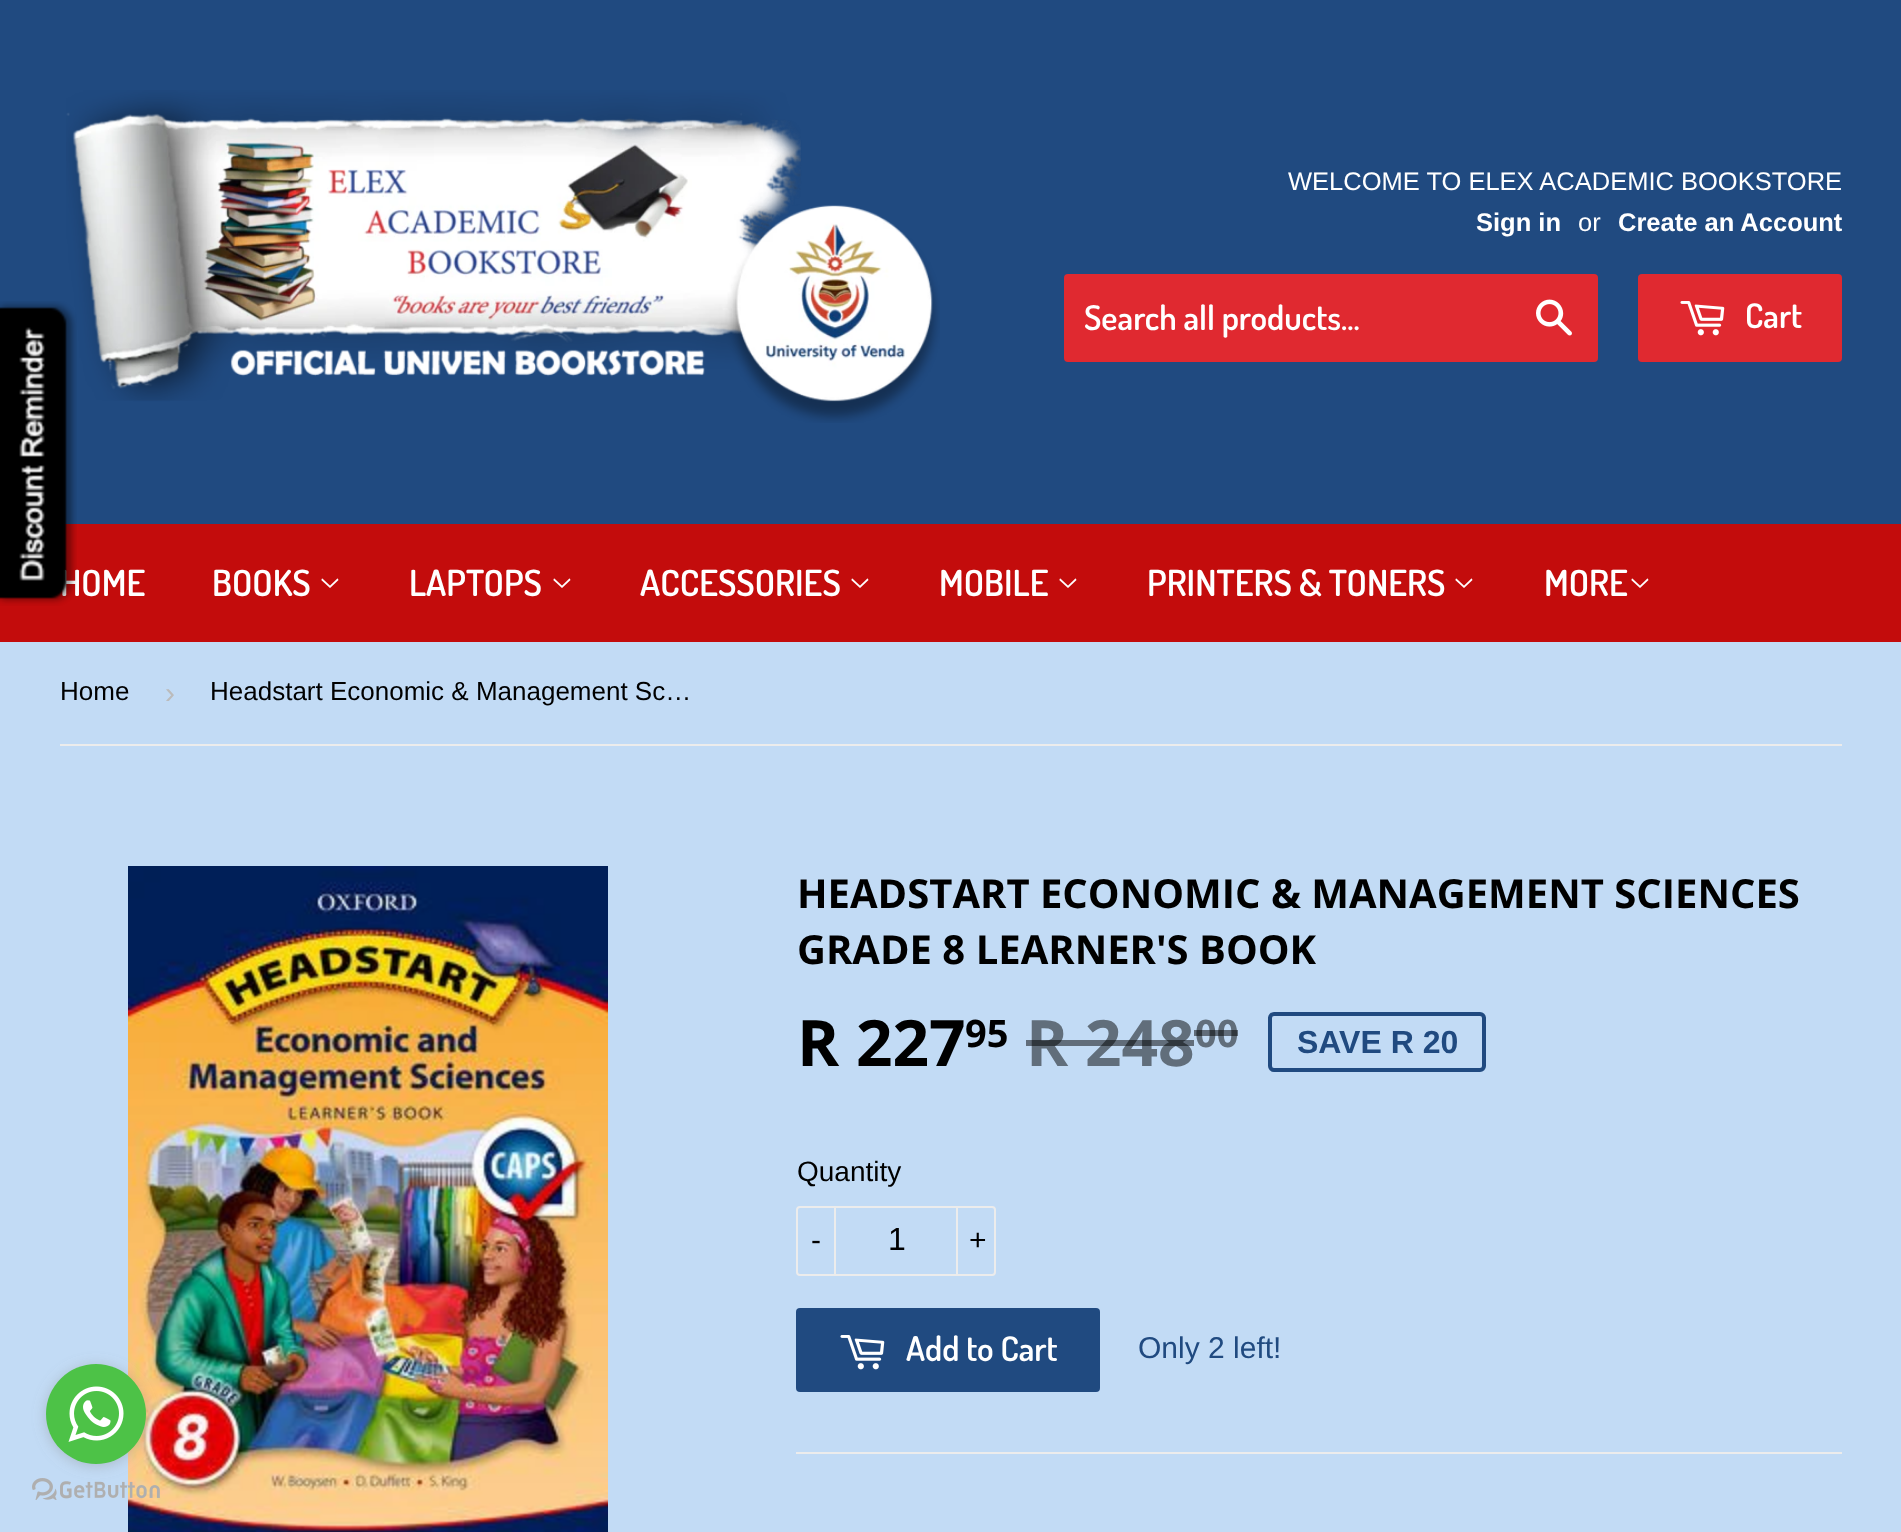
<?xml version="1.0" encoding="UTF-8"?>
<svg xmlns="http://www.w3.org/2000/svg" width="1901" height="1532">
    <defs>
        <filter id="blur1" x="-50%" y="-200%" width="200%" height="500%"><feGaussianBlur stdDeviation="7"/></filter>
    </defs>
    <rect width="100%" height="100%" fill="#C2DBF5"/>
    <rect x="0" y="0" width="1901" height="524" fill="#204A80"/>
    <image x="66" y="90" width="874" height="333" href="img_01.png"/>
    <text x="1288" y="190" font-family="Liberation Sans" font-size="25.5" fill="#FFFFFF">WELCOME TO ELEX ACADEMIC BOOKSTORE</text>
    <text x="1476" y="231" font-family="Liberation Sans" font-size="25.5" font-weight="700" fill="#FFFFFF">Sign in</text>
    <text x="1578" y="231" font-family="Liberation Sans" font-size="25.5" fill="#FFFFFF">or</text>
    <text x="1618" y="231" font-family="Liberation Sans" font-size="25.5" font-weight="700" fill="#FFFFFF">Create an Account</text>
    <rect x="1064" y="274" width="534" height="88" rx="4" fill="#E02930"/>
    <text x="1084" y="330" font-family="Dosis" font-size="34" font-weight="600" fill="#FFFFFF">Search all products...</text>
    <image x="1536" y="299" width="36" height="37" href="img_02.png"/>
    <rect x="1638" y="274" width="204" height="88" rx="4" fill="#E02930"/>
    <image x="1680" y="301" width="45" height="35" href="img_03.png"/>
    <text x="1745" y="328" font-family="Dosis" font-size="34" font-weight="600" fill="#FFFFFF">Cart</text>
    <rect x="0" y="524" width="1901" height="118" fill="#C30C0C"/>
    <text x="60" y="596" font-family="Dosis" font-size="36" font-weight="600" fill="#FFFFFF">HOME</text>
    <image x="0" y="301" width="77" height="305" href="img_04.png"/>
    <text x="212" y="596" font-family="Dosis" font-size="36" font-weight="600" fill="#FFFFFF">BOOKS</text>
    <image x="321" y="578" width="18" height="10" href="img_05.png"/>
    <text x="409" y="596" font-family="Dosis" font-size="36" font-weight="600" fill="#FFFFFF">LAPTOPS</text>
    <image x="553" y="578" width="18" height="10" href="img_05.png"/>
    <text x="640" y="596" font-family="Dosis" font-size="36" font-weight="600" fill="#FFFFFF">ACCESSORIES</text>
    <image x="851" y="578" width="18" height="10" href="img_05.png"/>
    <text x="939" y="596" font-family="Dosis" font-size="36" font-weight="600" fill="#FFFFFF">MOBILE</text>
    <image x="1059" y="578" width="18" height="10" href="img_05.png"/>
    <text x="1147" y="596" font-family="Dosis" font-size="36" font-weight="600" fill="#FFFFFF">PRINTERS &amp; TONERS</text>
    <image x="1455" y="578" width="18" height="10" href="img_05.png"/>
    <text x="1544" y="596" font-family="Dosis" font-size="36" font-weight="600" fill="#FFFFFF">MORE</text>
    <image x="1631" y="578" width="18" height="10" href="img_05.png"/>
    <rect x="60" y="744" width="1782" height="2" fill="#ECECEC"/>
    <text x="60" y="700" font-family="Liberation Sans" font-size="26" fill="#000000">Home</text>
    <text x="165" y="703" font-family="Liberation Sans" font-size="30" fill="#BBBBBB">›</text>
    <text x="210" y="700" font-family="Liberation Sans" font-size="26" fill="#000000">Headstart Economic &amp; Management Sc…</text>
    <image x="128" y="866" width="480" height="666" href="img_06.png"/>
    <text font-family="Open Sans" font-size="40" font-weight="700" fill="#000000">
        <tspan x="797" y="908">HEADSTART ECONOMIC &amp; MANAGEMENT SCIENCES</tspan>
        <tspan x="797" y="964">GRADE 8 LEARNER'S BOOK</tspan>
    </text>
    <text x="797" y="1066" font-family="Open Sans" font-size="64" font-weight="700" fill="#000000">R 227</text>
    <text x="965" y="1047" font-family="Open Sans" font-size="38" font-weight="700" fill="#000000">95</text>
    <text x="1026" y="1066" font-family="Open Sans" font-size="64" font-weight="700" fill="#616E7B">R 248</text>
    <rect x="1026" y="1040" width="168" height="6" fill="#000000" fill-opacity="0.5"/>
    <text x="1195" y="1047" font-family="Open Sans" font-size="38" font-weight="700" fill="#616E7B">00</text>
    <rect x="1194" y="1030" width="44" height="6" fill="#000000" fill-opacity="0.5"/>
    <rect x="1270" y="1014" width="214" height="56" rx="4" fill="none" stroke="#204A80" stroke-width="4"/>
    <text x="1297" y="1053" font-family="Liberation Sans" font-size="32" font-weight="700" fill="#204A80">SAVE R 20</text>
    <text x="797" y="1181" font-family="Liberation Sans" font-size="28" fill="#000000">Quantity</text>
    <rect x="797" y="1207" width="198" height="68" rx="3" fill="none" stroke="#ECECEC" stroke-width="2"/>
    <rect x="834" y="1206" width="2" height="70" fill="#ECECEC"/>
    <text x="811" y="1250" font-family="Liberation Sans" font-size="30" fill="#000000">-</text>
    <text x="888" y="1250" font-family="Liberation Sans" font-size="32" fill="#000000">1</text>
    <rect x="956" y="1206" width="2" height="70" fill="#ECECEC"/>
    <text x="969" y="1250" font-family="Liberation Sans" font-size="30" fill="#000000">+</text>
    <rect x="796" y="1308" width="304" height="84" rx="4" fill="#204A80"/>
    <image x="840" y="1335" width="45" height="35" href="img_07.png"/>
    <text x="906" y="1361" font-family="Dosis" font-size="34" font-weight="600" fill="#FFFFFF">Add to Cart</text>
    <text x="1138" y="1358" font-family="Liberation Sans" font-size="30" fill="#204A80">Only 2 left!</text>
    <rect x="796" y="1452" width="1046" height="2" fill="#ECECEC"/>
    <image x="32" y="1478" width="128" height="22" href="img_09.png"/>
    <rect x="46" y="1366" width="100" height="100" rx="50" fill="#888888" fill-opacity="0.4" filter="url(#blur1)"/>
    <circle cx="96" cy="1414" r="50" fill="#4DC247"/>
    <image x="68" y="1386" width="56" height="56" href="img_08.png"/>
</svg>
